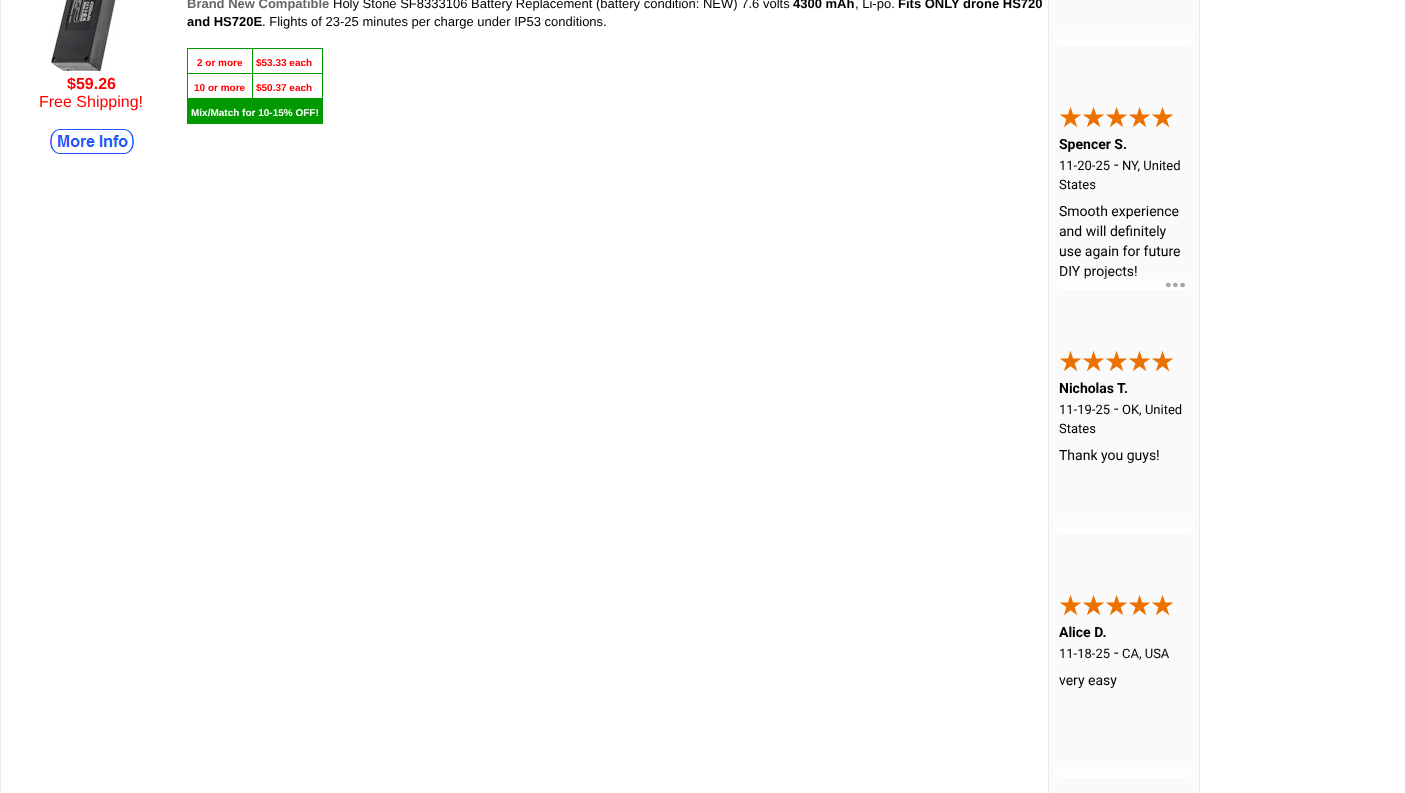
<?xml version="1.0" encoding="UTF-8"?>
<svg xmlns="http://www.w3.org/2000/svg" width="1405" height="793">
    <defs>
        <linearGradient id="g1" gradientUnits="userSpaceOnUse" x1="1132" y1="30" x2="1132" y2="46"><stop offset="0" stop-color="#FAFAFA"/><stop offset="0.9" stop-color="#FFFFFF"/></linearGradient>
        <linearGradient id="g2" gradientUnits="userSpaceOnUse" x1="1132" y1="274" x2="1132" y2="290"><stop offset="0" stop-color="#FFFFFF" stop-opacity="0"/><stop offset="0.9" stop-color="#FFFFFF"/></linearGradient>
        <linearGradient id="g3" gradientUnits="userSpaceOnUse" x1="1132" y1="518" x2="1132" y2="534"><stop offset="0" stop-color="#FAFAFA"/><stop offset="0.9" stop-color="#FFFFFF"/></linearGradient>
        <linearGradient id="g4" gradientUnits="userSpaceOnUse" x1="1132" y1="762" x2="1132" y2="778"><stop offset="0" stop-color="#FAFAFA"/><stop offset="0.9" stop-color="#FFFFFF"/></linearGradient>
    </defs>
    <rect width="100%" height="100%" fill="#FFFFFF"/>
    <rect x="0" y="0" width="1200" height="793" fill="#EAEAEA"/>
    <rect x="1" y="0" width="1047" height="793" fill="#FFFFFF"/>
    <image x="51" y="0" width="65" height="71" href="img_01.png"/>
    <text x="67" y="89" font-family="Liberation Sans" font-size="16" font-weight="700" fill="#FF0000">$59.26</text>
    <text x="39" y="107" font-family="Liberation Sans" font-size="16" fill="#FF0000">Free Shipping!</text>
    <image x="50" y="129" width="84" height="25" href="img_02.png"/>
    <text x="187" y="8" font-family="Liberation Sans" font-size="13" font-weight="700" fill="#666666">Brand New Compatible</text>
    <text x="333" y="8" font-family="Liberation Sans" font-size="13" fill="#000000">Holy Stone SF8333106 Battery Replacement (battery condition: NEW) 7.6 volts</text>
    <text x="793" y="8" font-family="Liberation Sans" font-size="13" font-weight="700" fill="#000000">4300 mAh</text>
    <text x="855" y="8" font-family="Liberation Sans" font-size="13" fill="#000000">, Li-po.</text>
    <text x="898" y="8" font-family="Liberation Sans" font-size="13" font-weight="700" fill="#000000">Fits ONLY drone HS720</text>
    <text x="187" y="26" font-family="Liberation Sans" font-size="13" font-weight="700" fill="#000000">and HS720E</text>
    <text x="262" y="26" font-family="Liberation Sans" font-size="13" fill="#000000">. Flights of 23-25 minutes per charge under IP53 conditions.</text>
    <rect x="187" y="48" width="136" height="76" fill="#009900"/>
    <rect x="188" y="49" width="64" height="24" fill="#FFFFFF"/>
    <text x="197" y="66" font-family="Liberation Sans" font-size="10" font-weight="700" fill="#FF0000">2 or more</text>
    <rect x="253" y="49" width="69" height="24" fill="#FFFFFF"/>
    <text x="256" y="66" font-family="Liberation Sans" font-size="10" font-weight="700" fill="#FF0000">$53.33 each</text>
    <rect x="188" y="74" width="64" height="24" fill="#FFFFFF"/>
    <text x="194" y="91" font-family="Liberation Sans" font-size="10" font-weight="700" fill="#FF0000">10 or more</text>
    <rect x="253" y="74" width="69" height="24" fill="#FFFFFF"/>
    <text x="256" y="91" font-family="Liberation Sans" font-size="10" font-weight="700" fill="#FF0000">$50.37 each</text>
    <text x="191" y="116" font-family="Liberation Sans" font-size="10" font-weight="700" fill="#FFFFFF">Mix/Match for 10-15% OFF!</text>
    <rect x="1049" y="0" width="150" height="793" fill="#FAFAFA"/>
    <path d="M 1054 30 H 1194 V 36 C 1194 41.5 1189.5 46 1184 46 H 1064 C 1058.5 46 1054 41.5 1054 36 Z" fill="url(#g1)"/>
    <text x="1058" y="127" font-family="DejaVu Sans" font-size="28" fill="#EB7100">★</text>
    <text x="1081" y="127" font-family="DejaVu Sans" font-size="28" fill="#EB7100">★</text>
    <text x="1104" y="127" font-family="DejaVu Sans" font-size="28" fill="#EB7100">★</text>
    <text x="1127" y="127" font-family="DejaVu Sans" font-size="28" fill="#EB7100">★</text>
    <text x="1150" y="127" font-family="DejaVu Sans" font-size="28" fill="#EB7100">★</text>
    <text x="1059" y="149" font-family="Roboto" font-size="14" font-weight="700" fill="#000000">Spencer S.</text>
    <text x="1059" y="170" font-family="Roboto" font-size="13" fill="#000000">11-20-25</text>
    <text x="1114" y="170" font-family="Roboto" font-size="16" fill="#000000">-</text>
    <text x="1122" y="170" font-family="Roboto" font-size="13" fill="#000000">NY, United</text>
    <text x="1059" y="189" font-family="Roboto" font-size="13" fill="#000000">States</text>
    <text font-family="Roboto" font-size="14" fill="#000000">
        <tspan x="1059" y="216">Smooth experience</tspan>
        <tspan x="1059" y="236">and will definitely</tspan>
        <tspan x="1059" y="256">use again for future</tspan>
        <tspan x="1059" y="276">DIY projects!</tspan>
    </text>
    <path d="M 1054 274 H 1194 V 280 C 1194 285.5 1189.5 290 1184 290 H 1064 C 1058.5 290 1054 285.5 1054 280 Z" fill="url(#g2)"/>
    <text x="1163" y="287" font-family="Roboto" font-size="42" letter-spacing="-4" fill="#A5A7AA">...</text>
    <text x="1058" y="371" font-family="DejaVu Sans" font-size="28" fill="#EB7100">★</text>
    <text x="1081" y="371" font-family="DejaVu Sans" font-size="28" fill="#EB7100">★</text>
    <text x="1104" y="371" font-family="DejaVu Sans" font-size="28" fill="#EB7100">★</text>
    <text x="1127" y="371" font-family="DejaVu Sans" font-size="28" fill="#EB7100">★</text>
    <text x="1150" y="371" font-family="DejaVu Sans" font-size="28" fill="#EB7100">★</text>
    <text x="1059" y="393" font-family="Roboto" font-size="14" font-weight="700" fill="#000000">Nicholas T.</text>
    <text x="1059" y="414" font-family="Roboto" font-size="13" fill="#000000">11-19-25</text>
    <text x="1114" y="414" font-family="Roboto" font-size="16" fill="#000000">-</text>
    <text x="1122" y="414" font-family="Roboto" font-size="13" fill="#000000">OK, United</text>
    <text x="1059" y="433" font-family="Roboto" font-size="13" fill="#000000">States</text>
    <text x="1059" y="460" font-family="Roboto" font-size="14" fill="#000000">Thank you guys!</text>
    <path d="M 1054 518 H 1194 V 524 C 1194 529.5 1189.5 534 1184 534 H 1064 C 1058.5 534 1054 529.5 1054 524 Z" fill="url(#g3)"/>
    <text x="1058" y="615" font-family="DejaVu Sans" font-size="28" fill="#EB7100">★</text>
    <text x="1081" y="615" font-family="DejaVu Sans" font-size="28" fill="#EB7100">★</text>
    <text x="1104" y="615" font-family="DejaVu Sans" font-size="28" fill="#EB7100">★</text>
    <text x="1127" y="615" font-family="DejaVu Sans" font-size="28" fill="#EB7100">★</text>
    <text x="1150" y="615" font-family="DejaVu Sans" font-size="28" fill="#EB7100">★</text>
    <text x="1059" y="637" font-family="Roboto" font-size="14" font-weight="700" fill="#000000">Alice D.</text>
    <text x="1059" y="658" font-family="Roboto" font-size="13" fill="#000000">11-18-25</text>
    <text x="1114" y="658" font-family="Roboto" font-size="16" fill="#000000">-</text>
    <text x="1122" y="658" font-family="Roboto" font-size="13" fill="#000000">CA, USA</text>
    <text x="1059" y="685" font-family="Roboto" font-size="14" fill="#000000">very easy</text>
    <path d="M 1054 762 H 1194 V 768 C 1194 773.5 1189.5 778 1184 778 H 1064 C 1058.5 778 1054 773.5 1054 768 Z" fill="url(#g4)"/>
</svg>
